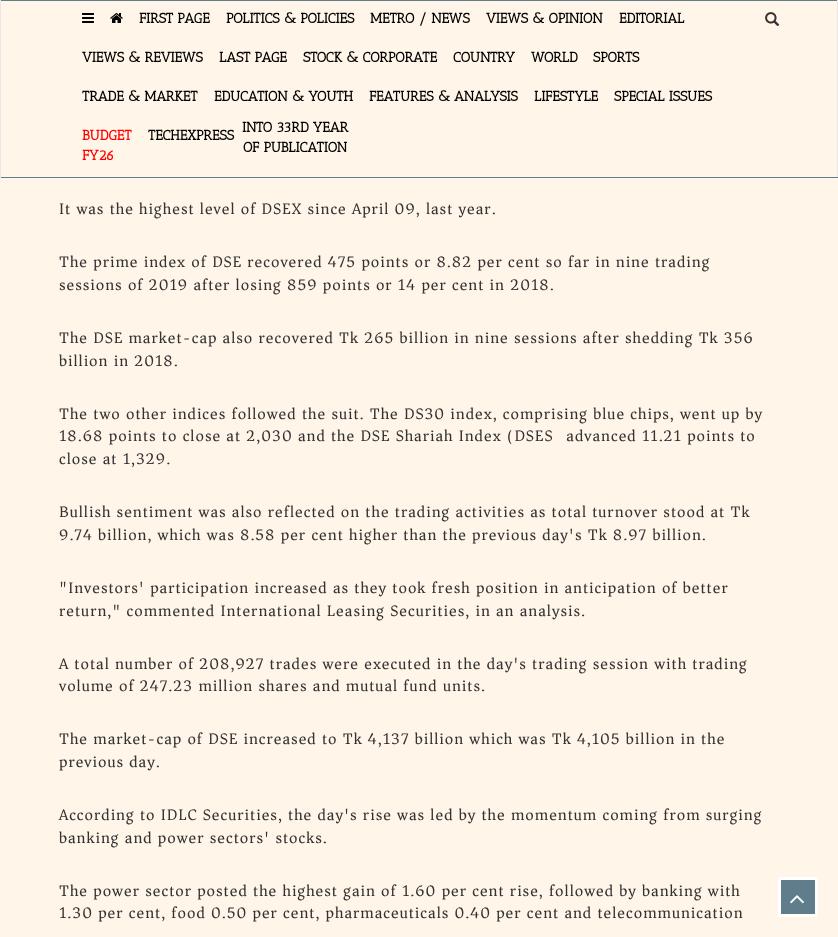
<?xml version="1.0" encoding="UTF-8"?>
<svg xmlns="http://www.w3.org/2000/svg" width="838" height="937">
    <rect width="100%" height="100%" fill="#FFF5E8"/>
    <rect x="0" y="0" width="838" height="1" fill="#607D8B"/>
    <rect x="837" y="0" width="1" height="178" fill="#E7E7E7"/>
    <rect x="0" y="177" width="838" height="1" fill="#607D8B"/>
    <rect x="0" y="0" width="1" height="178" fill="#E7E7E7"/>
    <image x="82" y="13" width="12" height="10" href="img_01.png"/>
    <image x="110" y="13" width="13" height="10" href="img_02.png"/>
    <text x="139" y="23" font-family="Antic Slab" font-size="14" font-weight="700" fill="#000000">FIRST PAGE</text>
    <text x="226" y="23" font-family="Antic Slab" font-size="14" font-weight="700" fill="#000000">POLITICS &amp; POLICIES</text>
    <text x="370" y="23" font-family="Antic Slab" font-size="14" font-weight="700" fill="#000000">METRO / NEWS</text>
    <text x="486" y="23" font-family="Antic Slab" font-size="14" font-weight="700" fill="#000000">VIEWS &amp; OPINION</text>
    <text x="619" y="23" font-family="Antic Slab" font-size="14" font-weight="700" fill="#000000">EDITORIAL</text>
    <text x="82" y="62" font-family="Antic Slab" font-size="14" font-weight="700" fill="#000000">VIEWS &amp; REVIEWS</text>
    <text x="219" y="62" font-family="Antic Slab" font-size="14" font-weight="700" fill="#000000">LAST PAGE</text>
    <text x="303" y="62" font-family="Antic Slab" font-size="14" font-weight="700" fill="#000000">STOCK &amp; CORPORATE</text>
    <text x="453" y="62" font-family="Antic Slab" font-size="14" font-weight="700" fill="#000000">COUNTRY</text>
    <text x="531" y="62" font-family="Antic Slab" font-size="14" font-weight="700" fill="#000000">WORLD</text>
    <text x="593" y="62" font-family="Antic Slab" font-size="14" font-weight="700" fill="#000000">SPORTS</text>
    <text x="82" y="101" font-family="Antic Slab" font-size="14" font-weight="700" fill="#000000">TRADE &amp; MARKET</text>
    <text x="214" y="101" font-family="Antic Slab" font-size="14" font-weight="700" fill="#000000">EDUCATION &amp; YOUTH</text>
    <text x="369" y="101" font-family="Antic Slab" font-size="14" font-weight="700" fill="#000000">FEATURES &amp; ANALYSIS</text>
    <text x="534" y="101" font-family="Antic Slab" font-size="14" font-weight="700" fill="#000000">LIFESTYLE</text>
    <text x="614" y="101" font-family="Antic Slab" font-size="14" font-weight="700" fill="#000000">SPECIAL ISSUES</text>
    <text font-family="Antic Slab" font-size="14" font-weight="700" fill="#FF0000">
        <tspan x="82" y="140">BUDGET</tspan>
        <tspan x="82" y="160">FY26</tspan>
    </text>
    <text x="148" y="140" font-family="Antic Slab" font-size="14" font-weight="700" fill="#000000">TECHEXPRESS</text>
    <text x="242" y="132" font-family="Antic Slab" font-size="14" font-weight="700" fill="#000000">INTO 33RD YEAR</text>
    <text x="243" y="152" font-family="Antic Slab" font-size="14" font-weight="700" fill="#000000">OF PUBLICATION</text>
    <image x="765" y="12" width="15" height="14" href="img_03.png"/>
    <text x="59" y="214" font-family="Asar" font-size="16" letter-spacing="1" fill="#333333">It was the highest level of DSEX since April 09, last year.</text>
    <text font-family="Asar" font-size="16" letter-spacing="1" fill="#333333">
        <tspan x="59" y="267">The prime index of DSE recovered 475 points or 8.82 per cent so far in nine trading</tspan>
        <tspan x="59" y="290">sessions of 2019 after losing 859 points or 14 per cent in 2018.</tspan>
    </text>
    <text font-family="Asar" font-size="16" letter-spacing="1" fill="#333333">
        <tspan x="59" y="343">The DSE market-cap also recovered Tk 265 billion in nine sessions after shedding Tk 356</tspan>
        <tspan x="59" y="366">billion in 2018.</tspan>
    </text>
    <text font-family="Asar" font-size="16" letter-spacing="1" fill="#333333">
        <tspan x="59" y="419">The two other indices followed the suit. The DS30 index, comprising blue chips, went up by</tspan>
        <tspan x="59" y="441">18.68 points to close at 2,030 and the DSE Shariah Index (DSES) advanced 11.21 points to</tspan>
        <tspan x="59" y="464">close at 1,329.</tspan>
    </text>
    <text font-family="Asar" font-size="16" letter-spacing="1" fill="#333333">
        <tspan x="59" y="517">Bullish sentiment was also reflected on the trading activities as total turnover stood at Tk</tspan>
        <tspan x="59" y="540">9.74 billion, which was 8.58 per cent higher than the previous day's Tk 8.97 billion.</tspan>
    </text>
    <text font-family="Asar" font-size="16" letter-spacing="1" fill="#333333">
        <tspan x="59" y="593">"Investors' participation increased as they took fresh position in anticipation of better</tspan>
        <tspan x="59" y="616">return," commented International Leasing Securities, in an analysis.</tspan>
    </text>
    <text font-family="Asar" font-size="16" letter-spacing="1" fill="#333333">
        <tspan x="59" y="669">A total number of 208,927 trades were executed in the day's trading session with trading</tspan>
        <tspan x="59" y="691">volume of 247.23 million shares and mutual fund units.</tspan>
    </text>
    <text font-family="Asar" font-size="16" letter-spacing="1" fill="#333333">
        <tspan x="59" y="744">The market-cap of DSE increased to Tk 4,137 billion which was Tk 4,105 billion in the</tspan>
        <tspan x="59" y="767">previous day.</tspan>
    </text>
    <text font-family="Asar" font-size="16" letter-spacing="1" fill="#333333">
        <tspan x="59" y="820">According to IDLC Securities, the day's rise was led by the momentum coming from surging</tspan>
        <tspan x="59" y="843">banking and power sectors' stocks.</tspan>
    </text>
    <text font-family="Asar" font-size="16" letter-spacing="1" fill="#333333">
        <tspan x="59" y="896">The power sector posted the highest gain of 1.60 per cent rise, followed by banking with</tspan>
        <tspan x="59" y="918">1.30 per cent, food 0.50 per cent, pharmaceuticals 0.40 per cent and telecommunication</tspan>
    </text>
    <rect x="779.5" y="878.5" width="37" height="37" rx="0.5" fill="#607D8B" stroke="#FFFFFF" stroke-width="3"/>
    <image x="790" y="895" width="14" height="9" href="img_04.png"/>
</svg>
